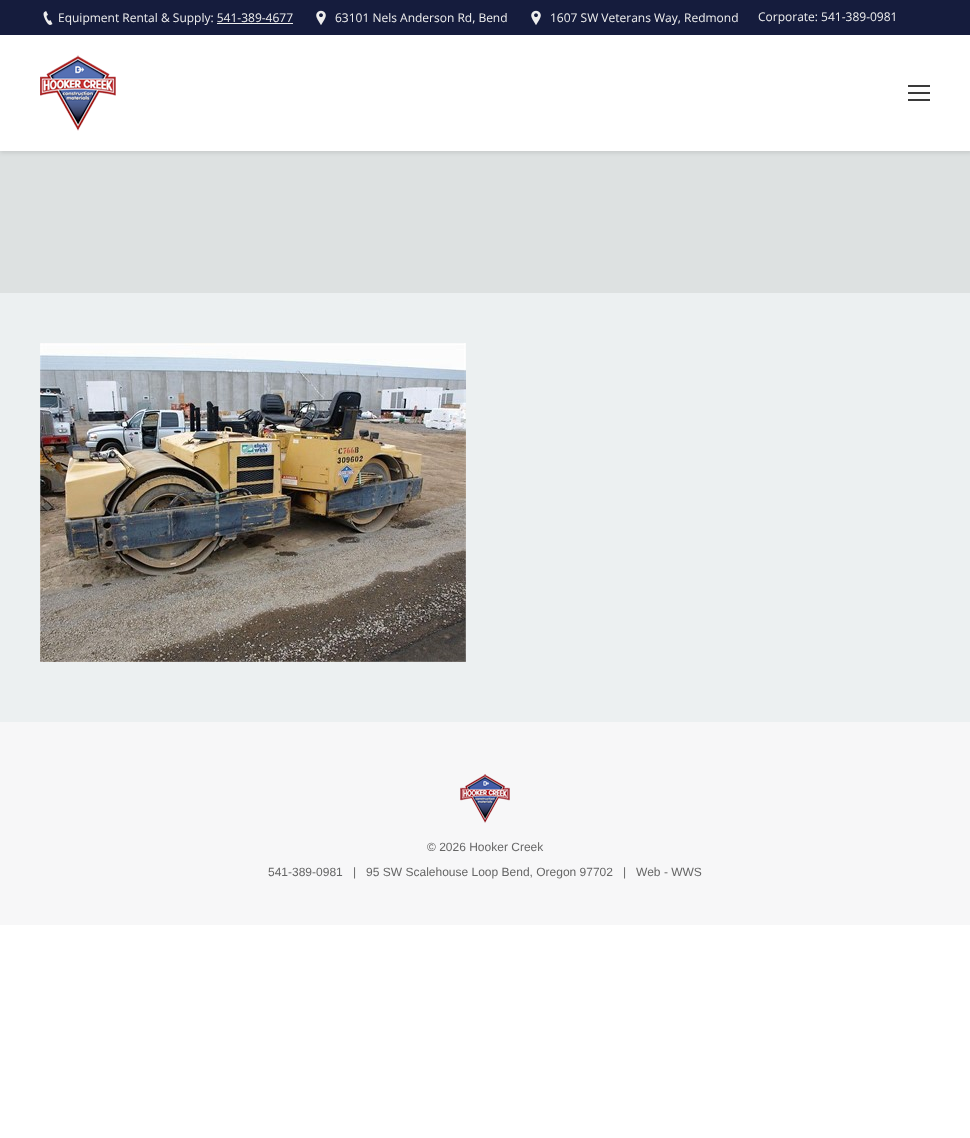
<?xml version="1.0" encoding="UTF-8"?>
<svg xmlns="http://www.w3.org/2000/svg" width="970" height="1138">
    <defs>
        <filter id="blur1" x="-50%" y="-200%" width="200%" height="500%"><feGaussianBlur stdDeviation="2"/></filter>
    </defs>
    <rect width="100%" height="100%" fill="#FFFFFF"/>
    <rect x="0" y="293" width="970" height="429" fill="#ECF0F1"/>
    <rect x="0" y="151" width="970" height="142" fill="#DDE1E1"/>
    <rect x="0" y="0" width="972" height="153" fill="#000000" fill-opacity="0.1" filter="url(#blur1)"/>
    <rect x="0" y="35" width="970" height="116" fill="#FFFFFF"/>
    <rect x="0" y="0" width="970" height="35" fill="#151C3D"/>
    <image x="43" y="11" width="10" height="14" href="img_01.png"/>
    <text x="58" y="22" font-family="Open Sans" font-size="12" fill="#EEEEEE">Equipment Rental &amp; Supply: 541-389-4677</text>
    <rect x="217" y="23" width="76" height="1" fill="#EEEEEE"/>
    <image x="316" y="10" width="10" height="15" href="img_02.png"/>
    <text x="335" y="22" font-family="Open Sans" font-size="12" fill="#EEEEEE">63101 Nels Anderson Rd, Bend</text>
    <image x="531" y="10" width="10" height="15" href="img_02.png"/>
    <text x="550" y="22" font-family="Open Sans" font-size="12" fill="#EEEEEE">1607 SW Veterans Way, Redmond</text>
    <text x="758" y="21" font-family="Open Sans" font-size="12" fill="#EEEEEE">Corporate: 541-389-0981</text>
    <image x="40" y="55" width="76" height="76" href="img_03.png"/>
    <rect x="908" y="92" width="22" height="2" fill="#3A3A3A"/>
    <rect x="908" y="85" width="22" height="2" fill="#3A3A3A"/>
    <rect x="908" y="99" width="22" height="2" fill="#3A3A3A"/>
    <image x="40" y="343" width="426" height="319" href="img_04.png"/>
    <rect x="0" y="722" width="970" height="203" fill="#F7F7F8"/>
    <image x="460" y="774" width="50" height="49" href="img_05.png"/>
    <text x="427" y="851" font-family="Liberation Sans" font-size="12" fill="#666666">© 2026 Hooker Creek</text>
    <text x="268" y="876" font-family="Liberation Sans" font-size="12" fill="#666666">541-389-0981</text>
    <text x="353" y="876" font-family="Liberation Sans" font-size="12" fill="#666666" xml:space="preserve">|   95 SW Scalehouse Loop Bend, Oregon 97702   |   Web - WWS</text>
</svg>
